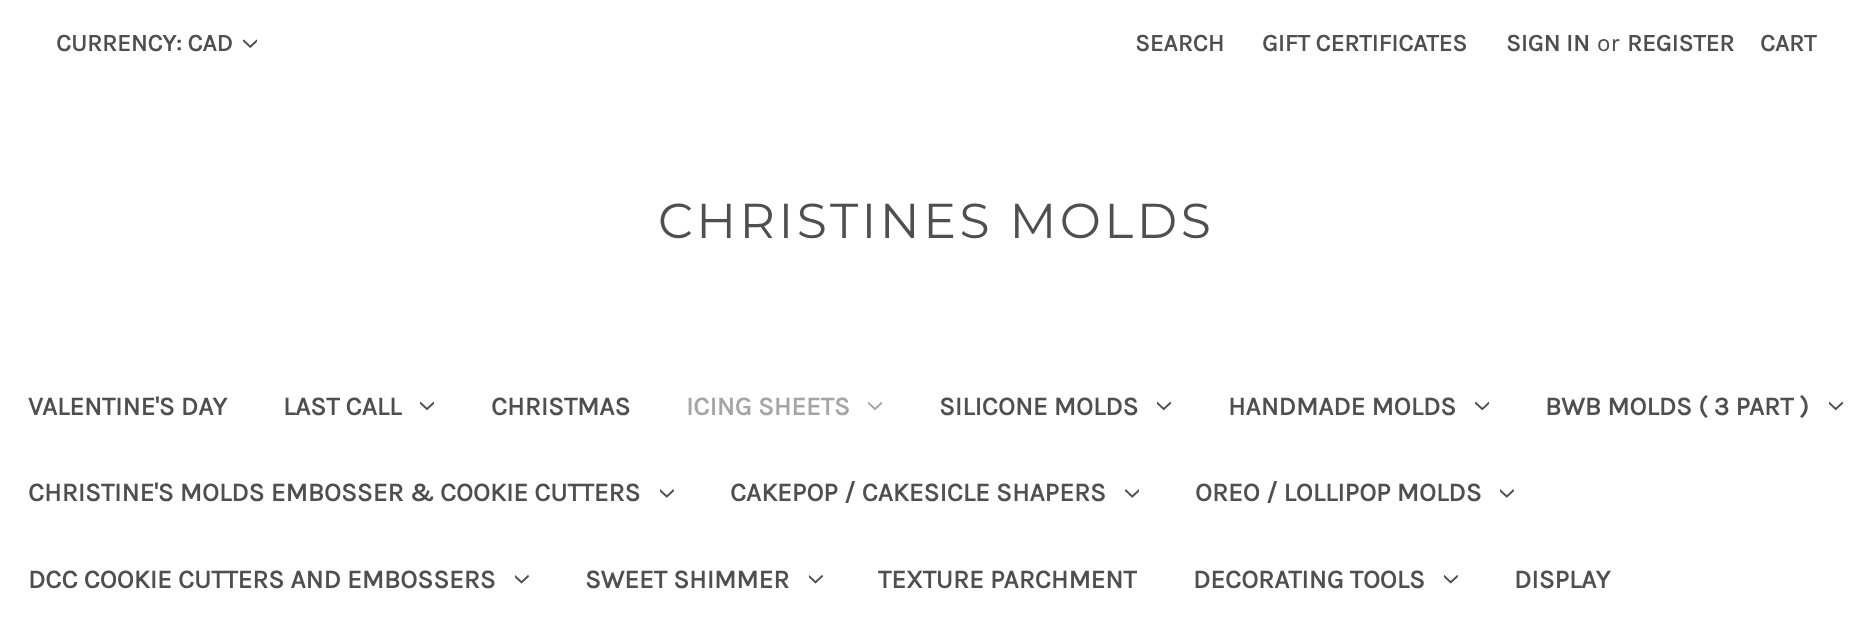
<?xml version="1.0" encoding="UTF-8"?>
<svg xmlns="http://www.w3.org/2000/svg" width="1871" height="617">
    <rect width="100%" height="100%" fill="#FFFFFF"/>
    <text x="56" y="51" font-family="Karla" font-size="24.5" font-weight="700" fill="#4F4F4F">CURRENCY: CAD</text>
    <image x="243" y="39" width="14" height="9" href="img_01.png"/>
    <text x="1135" y="51" font-family="Karla" font-size="24.5" font-weight="700" fill="#4F4F4F">SEARCH</text>
    <text x="1262" y="51" font-family="Karla" font-size="24.5" font-weight="700" fill="#4F4F4F">GIFT CERTIFICATES</text>
    <text x="1506" y="51" font-family="Karla" font-size="24.5" font-weight="700" fill="#4F4F4F">SIGN IN</text>
    <text x="1597" y="51" font-family="Karla" font-size="24.5" fill="#4F4F4F">or</text>
    <text x="1627" y="51" font-family="Karla" font-size="24.5" font-weight="700" fill="#4F4F4F">REGISTER</text>
    <text x="1760" y="51" font-family="Karla" font-size="24.5" font-weight="700" fill="#4F4F4F">CART</text>
    <text x="658" y="238" font-family="Montserrat" font-size="49" font-weight="100" letter-spacing="3.5" fill="#4F4F4F">CHRISTINES MOLDS</text>
    <text x="28" y="415" font-family="Karla" font-size="26.25" font-weight="700" fill="#4F4F4F">VALENTINE'S DAY</text>
    <text x="283" y="415" font-family="Karla" font-size="26.25" font-weight="700" fill="#4F4F4F">LAST CALL</text>
    <image x="420" y="401" width="14" height="10" href="img_02.png"/>
    <text x="491" y="415" font-family="Karla" font-size="26.25" font-weight="700" fill="#4F4F4F">CHRISTMAS</text>
    <text x="686" y="415" font-family="Karla" font-size="26.25" font-weight="700" fill="#A5A5A5">ICING SHEETS</text>
    <image x="868" y="401" width="14" height="10" href="img_03.png"/>
    <text x="939" y="415" font-family="Karla" font-size="26.25" font-weight="700" fill="#4F4F4F">SILICONE MOLDS</text>
    <image x="1157" y="401" width="14" height="10" href="img_04.png"/>
    <text x="1228" y="415" font-family="Karla" font-size="26.25" font-weight="700" fill="#4F4F4F">HANDMADE MOLDS</text>
    <image x="1475" y="401" width="14" height="10" href="img_05.png"/>
    <text x="1545" y="415" font-family="Karla" font-size="26.25" font-weight="700" fill="#4F4F4F">BWB MOLDS ( 3 PART )</text>
    <image x="1829" y="401" width="14" height="10" href="img_04.png"/>
    <text x="28" y="501" font-family="Karla" font-size="26.25" font-weight="700" fill="#4F4F4F">CHRISTINE'S MOLDS EMBOSSER &amp; COOKIE CUTTERS</text>
    <image x="660" y="489" width="14" height="9" href="img_06.png"/>
    <text x="730" y="501" font-family="Karla" font-size="26.25" font-weight="700" fill="#4F4F4F">CAKEPOP / CAKESICLE SHAPERS</text>
    <image x="1125" y="489" width="14" height="9" href="img_07.png"/>
    <text x="1195" y="501" font-family="Karla" font-size="26.25" font-weight="700" fill="#4F4F4F">OREO / LOLLIPOP MOLDS</text>
    <image x="1500" y="489" width="14" height="9" href="img_06.png"/>
    <text x="28" y="588" font-family="Karla" font-size="26.25" font-weight="700" fill="#4F4F4F">DCC COOKIE CUTTERS AND EMBOSSERS</text>
    <image x="515" y="575" width="14" height="9" href="img_08.png"/>
    <text x="585" y="588" font-family="Karla" font-size="26.25" font-weight="700" fill="#4F4F4F">SWEET SHIMMER</text>
    <image x="809" y="575" width="14" height="9" href="img_08.png"/>
    <text x="878" y="588" font-family="Karla" font-size="26.25" font-weight="700" fill="#4F4F4F">TEXTURE PARCHMENT</text>
    <text x="1193" y="588" font-family="Karla" font-size="26.25" font-weight="700" fill="#4F4F4F">DECORATING TOOLS</text>
    <image x="1444" y="575" width="14" height="9" href="img_09.png"/>
    <text x="1514" y="588" font-family="Karla" font-size="26.25" font-weight="700" fill="#4F4F4F">DISPLAY</text>
</svg>
